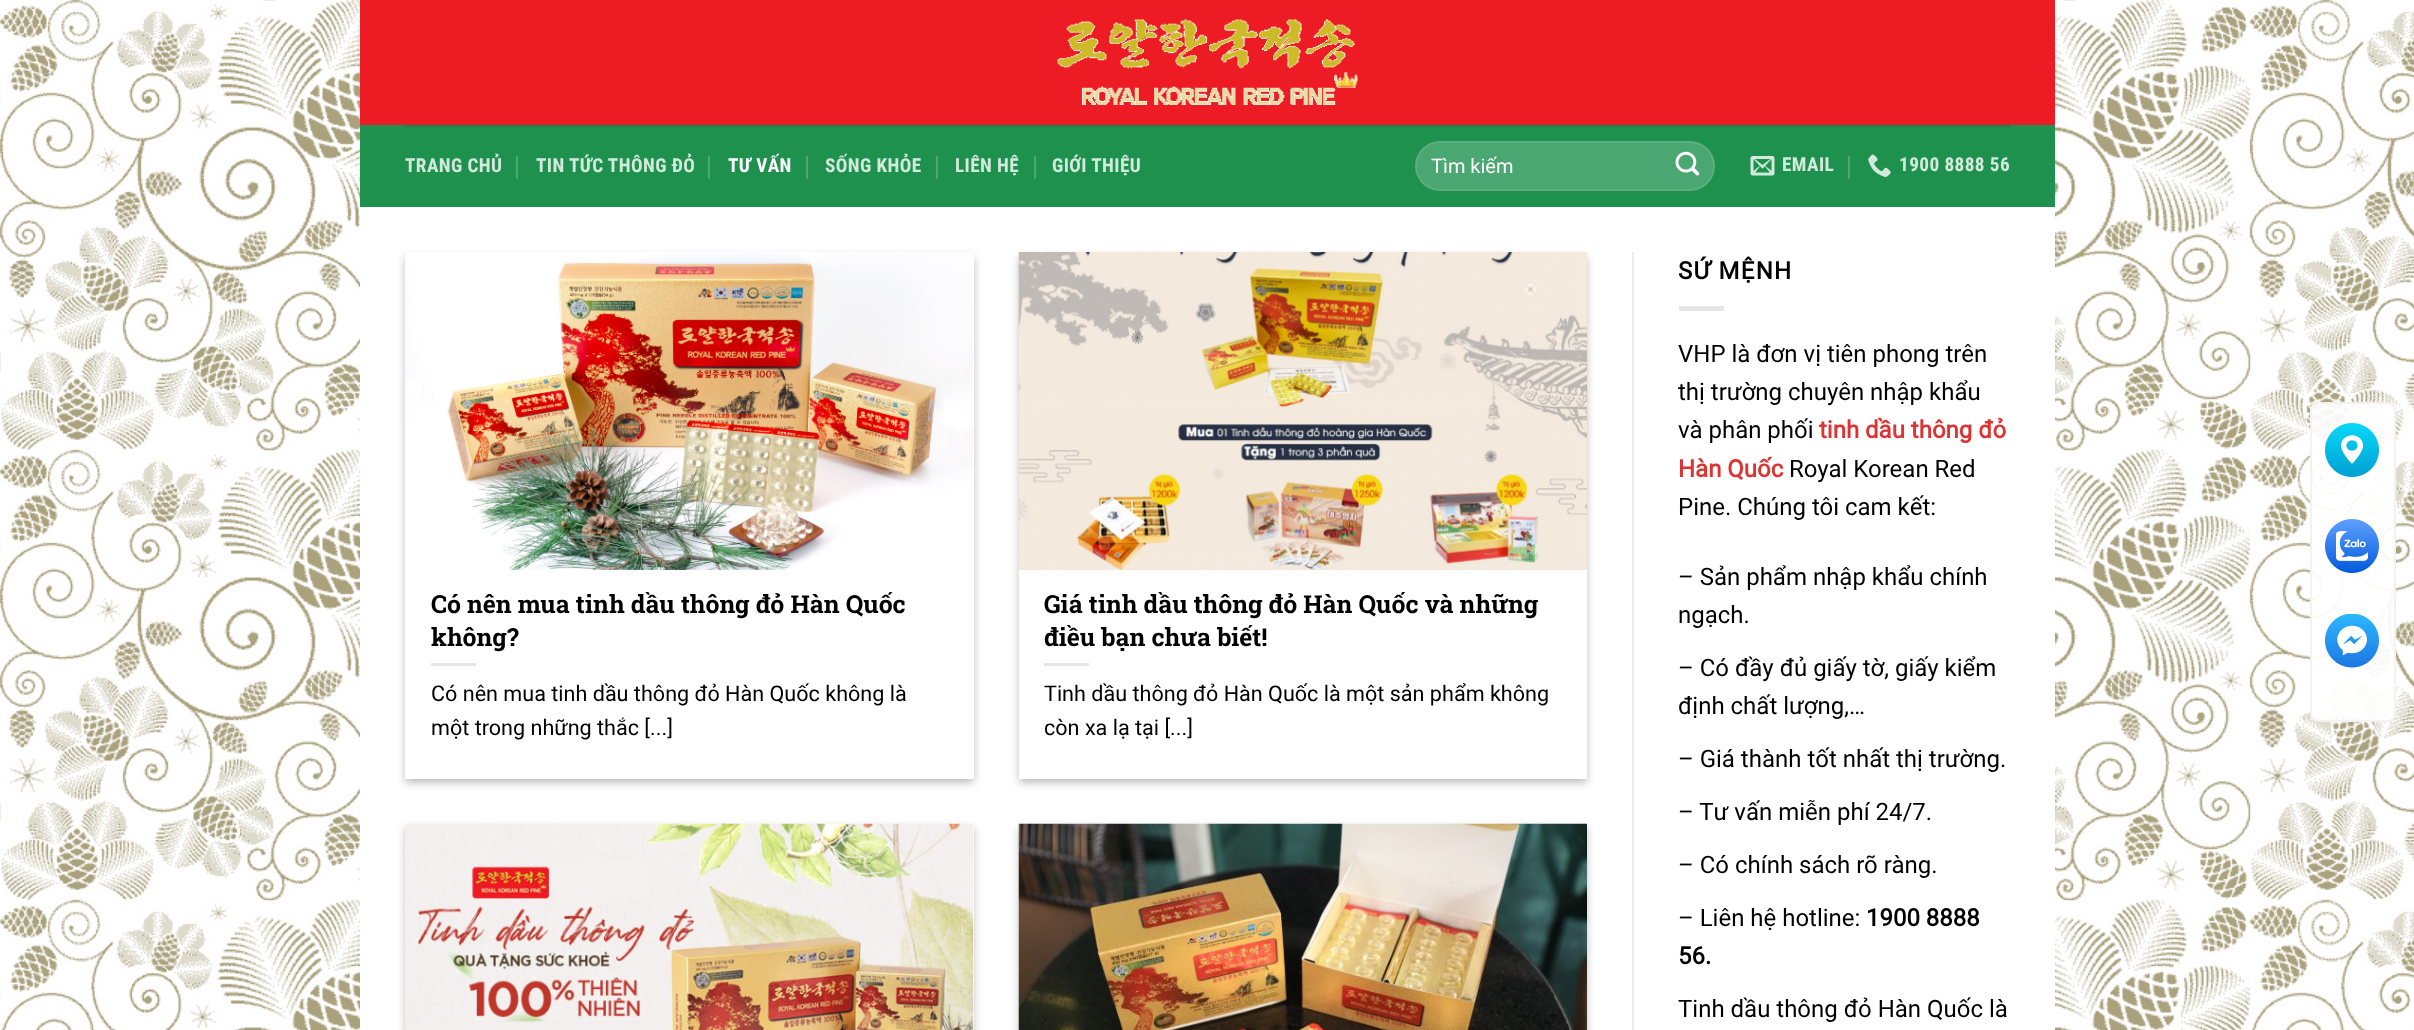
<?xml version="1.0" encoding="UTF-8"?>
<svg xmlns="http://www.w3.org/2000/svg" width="2414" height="1030">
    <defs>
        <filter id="blur1" x="-50%" y="-200%" width="200%" height="500%"><feGaussianBlur stdDeviation="4.5"/></filter>
    </defs>
    <rect width="100%" height="100%" fill="#FFFFFF"/>
    <image x="0" y="0" width="2414" height="1030" href="img_01.png"/>
    <rect x="360" y="207" width="1695" height="823" fill="#FFFFFF"/>
    <rect x="360" y="0" width="1695" height="125" fill="#ED1B24"/>
    <image x="1057" y="19" width="301" height="86" href="img_02.png"/>
    <rect x="360" y="125" width="1695" height="82" fill="#1E914E"/>
    <rect x="405" y="125" width="1605" height="2" fill="#1B8346"/>
    <text x="405" y="172" font-family="Roboto Condensed" font-size="19.25" font-weight="700" letter-spacing="0.4" fill="#D2E9DC">TRANG CHỦ</text>
    <rect x="516" y="156" width="2" height="23" fill="#4BA771"/>
    <text x="536" y="172" font-family="Roboto Condensed" font-size="19.25" font-weight="700" letter-spacing="0.4" fill="#D2E9DC">TIN TỨC THÔNG ĐỎ</text>
    <rect x="708" y="156" width="2" height="23" fill="#4BA771"/>
    <text x="728" y="172" font-family="Roboto Condensed" font-size="19.25" font-weight="700" letter-spacing="0.4" fill="#FFFFFF">TƯ VẤN</text>
    <rect x="806" y="156" width="2" height="23" fill="#4BA771"/>
    <text x="825" y="172" font-family="Roboto Condensed" font-size="19.25" font-weight="700" letter-spacing="0.4" fill="#D2E9DC">SỐNG KHỎE</text>
    <rect x="936" y="156" width="2" height="23" fill="#4BA771"/>
    <text x="955" y="172" font-family="Roboto Condensed" font-size="19.25" font-weight="700" letter-spacing="0.4" fill="#D2E9DC">LIÊN HỆ</text>
    <rect x="1034" y="156" width="2" height="23" fill="#4BA771"/>
    <text x="1052" y="172" font-family="Roboto Condensed" font-size="19.25" font-weight="700" letter-spacing="0.4" fill="#D2E9DC">GIỚI THIỆU</text>
    <rect x="1415" y="141" width="300" height="50" rx="25" fill="#4BA771"/>
    <rect x="1416" y="142" width="298" height="48" rx="24" fill="none" stroke="#FFFFFF" stroke-opacity="0.09" stroke-width="2"/>
    <text x="1431" y="173" font-family="Roboto" font-size="20" fill="#FFFFFF">Tìm kiếm</text>
    <image x="1675" y="151" width="25" height="25" href="img_03.png"/>
    <image x="1750" y="156" width="25" height="20" href="img_04.png"/>
    <text x="1782" y="171" font-family="Roboto Condensed" font-size="19.25" font-weight="700" letter-spacing="0.4" fill="#D2E9DC">EMAIL</text>
    <rect x="1848" y="156" width="2" height="23" fill="#4BA771"/>
    <image x="1868" y="154" width="23" height="23" href="img_05.png"/>
    <text x="1899" y="171" font-family="Roboto Condensed" font-size="19.25" font-weight="700" letter-spacing="0.4" fill="#D2E9DC">1900 8888 56</text>
    <rect x="405" y="257" width="569" height="526" fill="#000000" fill-opacity="0.23" filter="url(#blur1)"/>
    <rect x="411" y="263" width="557" height="514" fill="#000000" fill-opacity="0.16" filter="url(#blur1)"/>
    <rect x="405" y="252" width="569" height="527" fill="#FFFFFF"/>
    <image x="405" y="252" width="568" height="318" href="img_06.png"/>
    <text font-family="Roboto Slab" font-size="24.8" font-weight="700" fill="#000000">
        <tspan x="431" y="613">Có nên mua tinh dầu thông đỏ Hàn Quốc</tspan>
        <tspan x="431" y="646">không?</tspan>
    </text>
    <rect x="431" y="663" width="45" height="3" fill="#E6E6E6"/>
    <text font-family="Roboto" font-size="21.6" fill="#000000">
        <tspan x="431" y="701">Có nên mua tinh dầu thông đỏ Hàn Quốc không là</tspan>
        <tspan x="431" y="735">một trong những thắc [...]</tspan>
    </text>
    <rect x="1019" y="257" width="568" height="526" fill="#000000" fill-opacity="0.23" filter="url(#blur1)"/>
    <rect x="1025" y="263" width="556" height="514" fill="#000000" fill-opacity="0.16" filter="url(#blur1)"/>
    <rect x="1019" y="570" width="568" height="209" fill="#FFFFFF"/>
    <image x="1018" y="252" width="569" height="318" href="img_07.png"/>
    <text font-family="Roboto Slab" font-size="24.8" font-weight="700" fill="#000000">
        <tspan x="1044" y="613">Giá tinh dầu thông đỏ Hàn Quốc và những</tspan>
        <tspan x="1044" y="646">điều bạn chưa biết!</tspan>
    </text>
    <rect x="1044" y="663" width="45" height="3" fill="#E6E6E6"/>
    <text font-family="Roboto" font-size="21.6" fill="#000000">
        <tspan x="1044" y="701">Tinh dầu thông đỏ Hàn Quốc là một sản phẩm không</tspan>
        <tspan x="1044" y="735">còn xa lạ tại [...]</tspan>
    </text>
    <rect x="405" y="828" width="569" height="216" fill="#000000" fill-opacity="0.23" filter="url(#blur1)"/>
    <rect x="973" y="824" width="1" height="206" fill="#FFFFFF"/>
    <image x="405" y="823" width="569" height="207" href="img_08.png"/>
    <rect x="1019" y="828" width="568" height="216" fill="#000000" fill-opacity="0.23" filter="url(#blur1)"/>
    <image x="1018" y="823" width="569" height="207" href="img_09.png"/>
    <rect x="1632" y="252" width="2" height="778" fill="#ECECEC"/>
    <text x="1678" y="279" font-family="Roboto" font-size="24" font-weight="700" letter-spacing="1.25" fill="#000000">SỨ MỆNH</text>
    <rect x="1679" y="306" width="45" height="5" fill="#E6E6E6"/>
    <text font-family="Roboto" font-size="24" fill="#000000">
        <tspan x="1678" y="362">VHP là đơn vị tiên phong trên</tspan>
        <tspan x="1678" y="400">thị trường chuyên nhập khẩu</tspan>
        <tspan x="1678" y="438">và phân phối</tspan>
    </text>
    <text x="1819" y="438" font-family="Roboto" font-size="24" font-weight="700" fill="#DD3333">tinh dầu thông đỏ</text>
    <text x="1678" y="477" font-family="Roboto" font-size="24" font-weight="700" fill="#DD3333">Hàn Quốc</text>
    <text x="1789" y="477" font-family="Roboto" font-size="24" fill="#000000">Royal Korean Red</text>
    <text x="1678" y="515" font-family="Roboto" font-size="24" fill="#000000">Pine. Chúng tôi cam kết:</text>
    <text font-family="Roboto" font-size="24" fill="#000000">
        <tspan x="1678" y="585">– Sản phẩm nhập khẩu chính</tspan>
        <tspan x="1678" y="623">ngạch.</tspan>
    </text>
    <text font-family="Roboto" font-size="24" fill="#000000">
        <tspan x="1678" y="676">– Có đầy đủ giấy tờ, giấy kiểm</tspan>
        <tspan x="1678" y="714">định chất lượng,…</tspan>
    </text>
    <text x="1678" y="767" font-family="Roboto" font-size="24" fill="#000000">– Giá thành tốt nhất thị trường.</text>
    <text x="1678" y="820" font-family="Roboto" font-size="24" fill="#000000">– Tư vấn miễn phí 24/7.</text>
    <text x="1678" y="873" font-family="Roboto" font-size="24" fill="#000000">– Có chính sách rõ ràng.</text>
    <text x="1678" y="926" font-family="Roboto" font-size="24" fill="#000000">– Liên hệ hotline:</text>
    <text x="1866" y="926" font-family="Roboto" font-size="24" font-weight="700" fill="#000000">1900 8888</text>
    <text x="1678" y="964" font-family="Roboto" font-size="24" font-weight="700" fill="#000000">56.</text>
    <text x="1678" y="1017" font-family="Roboto" font-size="24" fill="#000000">Tinh dầu thông đỏ Hàn Quốc là</text>
    <rect x="2311" y="403" width="84" height="318" rx="7" fill="#FFFFFF" fill-opacity="0.93" stroke="#F2F2F2" stroke-width="2"/>
    <image x="2325" y="423" width="54" height="54" href="img_10.png"/>
    <image x="2325" y="519" width="54" height="54" href="img_11.png"/>
    <image x="2325" y="614" width="54" height="54" href="img_12.png"/>
</svg>
